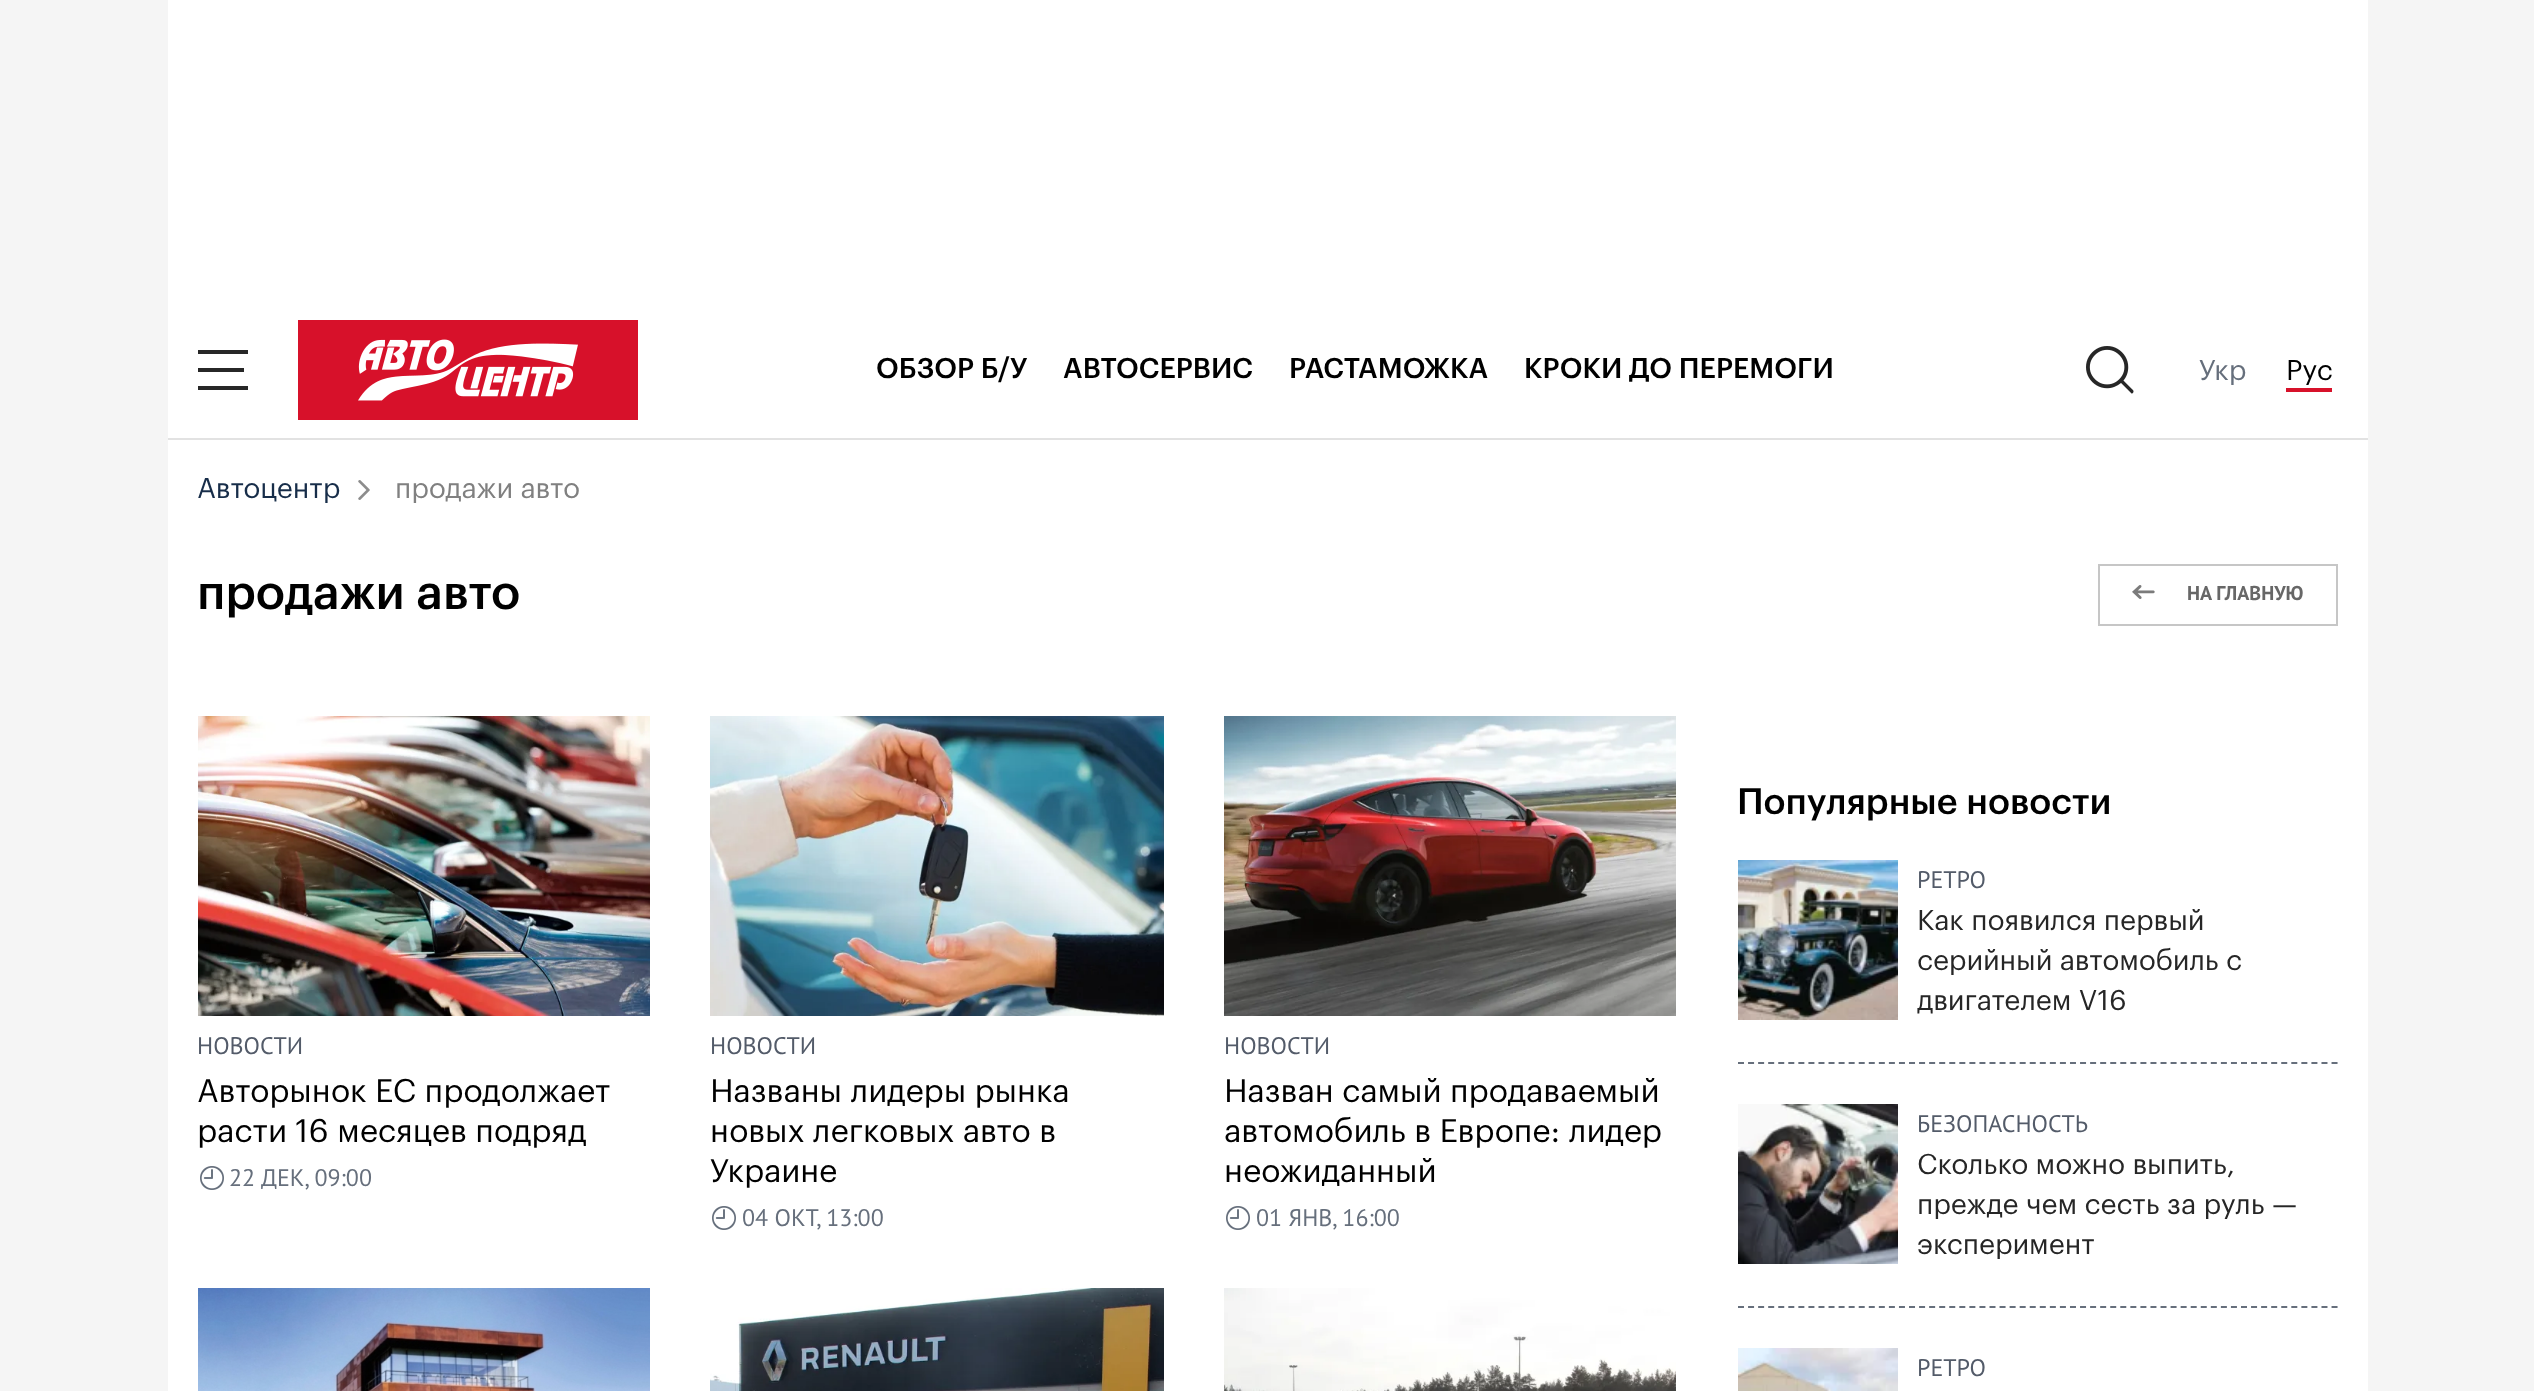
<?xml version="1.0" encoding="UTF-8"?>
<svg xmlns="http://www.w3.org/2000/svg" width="2534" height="1391">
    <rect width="100%" height="100%" fill="#F5F5F5"/>
    <rect x="168" y="0" width="2200" height="1391" fill="#FFFFFF"/>
    <rect x="168" y="438" width="2200" height="2" fill="#E2E2E2"/>
    <rect x="198" y="368" width="46" height="4" fill="#272727"/>
    <rect x="198" y="350" width="50" height="4" fill="#272727"/>
    <rect x="198" y="386" width="50" height="4" fill="#272727"/>
    <rect x="298" y="320" width="340" height="100" fill="#D7112A"/>
    <image x="358" y="339" width="220" height="62" href="img_01.png"/>
    <text x="876" y="378" font-family="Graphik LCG" font-size="28" font-weight="500" fill="#000000">ОБЗОР Б/У</text>
    <text x="1063" y="378" font-family="Graphik LCG" font-size="28" font-weight="500" fill="#000000">АВТОСЕРВИС</text>
    <text x="1289" y="378" font-family="Graphik LCG" font-size="28" font-weight="500" fill="#000000">РАСТАМОЖКА</text>
    <text x="1524" y="378" font-family="Graphik LCG" font-size="28" font-weight="500" fill="#000000">КРОКИ ДО ПЕРЕМОГИ</text>
    <image x="2086" y="346" width="48" height="48" href="img_02.png"/>
    <text x="2199" y="380" font-family="Graphik LCG" font-size="28" fill="#666F7C">Укр</text>
    <text x="2286" y="380" font-family="Graphik LCG" font-size="28" fill="#000000">Рус</text>
    <rect x="2286" y="388" width="46" height="4" fill="#D7112A"/>
    <text x="197" y="498" font-family="Graphik LCG" font-size="28" fill="#172D49">Автоцентр</text>
    <image x="358" y="480" width="12" height="20" href="img_03.png"/>
    <text x="395" y="498" font-family="Graphik LCG" font-size="28" fill="#808080">продажи авто</text>
    <text x="197" y="609" font-family="Graphik LCG" font-size="48" font-weight="500" fill="#000000">продажи авто</text>
    <rect x="2099" y="565" width="238" height="60" fill="none" stroke="#C6C6C6" stroke-width="2"/>
    <image x="2132" y="585" width="23" height="14" href="img_04.png"/>
    <text x="2187" y="600" font-family="PT Sans" font-size="20" font-weight="700" fill="#676767">НА ГЛАВНУЮ</text>
    <image x="198" y="716" width="452" height="300" href="img_05.png"/>
    <text x="197" y="1054" font-family="PT Sans" font-size="24" fill="#535B69">НОВОСТИ</text>
    <text font-family="Graphik LCG" font-size="32" fill="#000000">
        <tspan x="197" y="1102">Авторынок ЕС продолжает</tspan>
        <tspan x="197" y="1142">расти 16 месяцев подряд</tspan>
    </text>
    <image x="200" y="1166" width="24" height="24" href="img_06.png"/>
    <text x="229" y="1186" font-family="PT Sans" font-size="24" fill="#666F7C">22 ДЕК, 09:00</text>
    <image x="710" y="716" width="454" height="300" href="img_07.png"/>
    <text x="710" y="1054" font-family="PT Sans" font-size="24" fill="#535B69">НОВОСТИ</text>
    <text font-family="Graphik LCG" font-size="32" fill="#000000">
        <tspan x="710" y="1102">Названы лидеры рынка</tspan>
        <tspan x="710" y="1142">новых легковых авто в</tspan>
        <tspan x="710" y="1182">Украине</tspan>
    </text>
    <image x="712" y="1206" width="24" height="24" href="img_06.png"/>
    <text x="742" y="1226" font-family="PT Sans" font-size="24" fill="#666F7C">04 ОКТ, 13:00</text>
    <image x="1224" y="716" width="452" height="300" href="img_08.png"/>
    <text x="1224" y="1054" font-family="PT Sans" font-size="24" fill="#535B69">НОВОСТИ</text>
    <text font-family="Graphik LCG" font-size="32" fill="#000000">
        <tspan x="1224" y="1102">Назван самый продаваемый</tspan>
        <tspan x="1224" y="1142">автомобиль в Европе: лидер</tspan>
        <tspan x="1224" y="1182">неожиданный</tspan>
    </text>
    <image x="1226" y="1206" width="24" height="24" href="img_06.png"/>
    <text x="1256" y="1226" font-family="PT Sans" font-size="24" fill="#666F7C">01 ЯНВ, 16:00</text>
    <image x="198" y="1288" width="452" height="103" href="img_09.png"/>
    <image x="710" y="1288" width="454" height="103" href="img_10.png"/>
    <image x="1224" y="1288" width="452" height="103" href="img_11.png"/>
    <text x="1737" y="814" font-family="Graphik LCG" font-size="36" font-weight="500" fill="#000000">Популярные новости</text>
    <path d="M 1738 1063 H 2338" fill="none" stroke="#666F7C" stroke-width="2" stroke-dasharray="6 4.06"/>
    <image x="1738" y="860" width="160" height="160" href="img_12.png"/>
    <text x="1917" y="888" font-family="PT Sans" font-size="24" fill="#535B69">РЕТРО</text>
    <text font-family="Graphik LCG" font-size="28" fill="#262626">
        <tspan x="1917" y="930">Как появился первый</tspan>
        <tspan x="1917" y="970">серийный автомобиль с</tspan>
        <tspan x="1917" y="1010">двигателем V16</tspan>
    </text>
    <path d="M 1738 1307 H 2338" fill="none" stroke="#666F7C" stroke-width="2" stroke-dasharray="6 4.06"/>
    <image x="1738" y="1104" width="160" height="160" href="img_13.png"/>
    <text x="1917" y="1132" font-family="PT Sans" font-size="24" fill="#535B69">БЕЗОПАСНОСТЬ</text>
    <text font-family="Graphik LCG" font-size="28" fill="#262626">
        <tspan x="1917" y="1174">Сколько можно выпить,</tspan>
        <tspan x="1917" y="1214">прежде чем сесть за руль —</tspan>
        <tspan x="1917" y="1254">эксперимент</tspan>
    </text>
    <image x="1738" y="1348" width="160" height="43" href="img_14.png"/>
    <text x="1917" y="1376" font-family="PT Sans" font-size="24" fill="#535B69">РЕТРО</text>
</svg>
